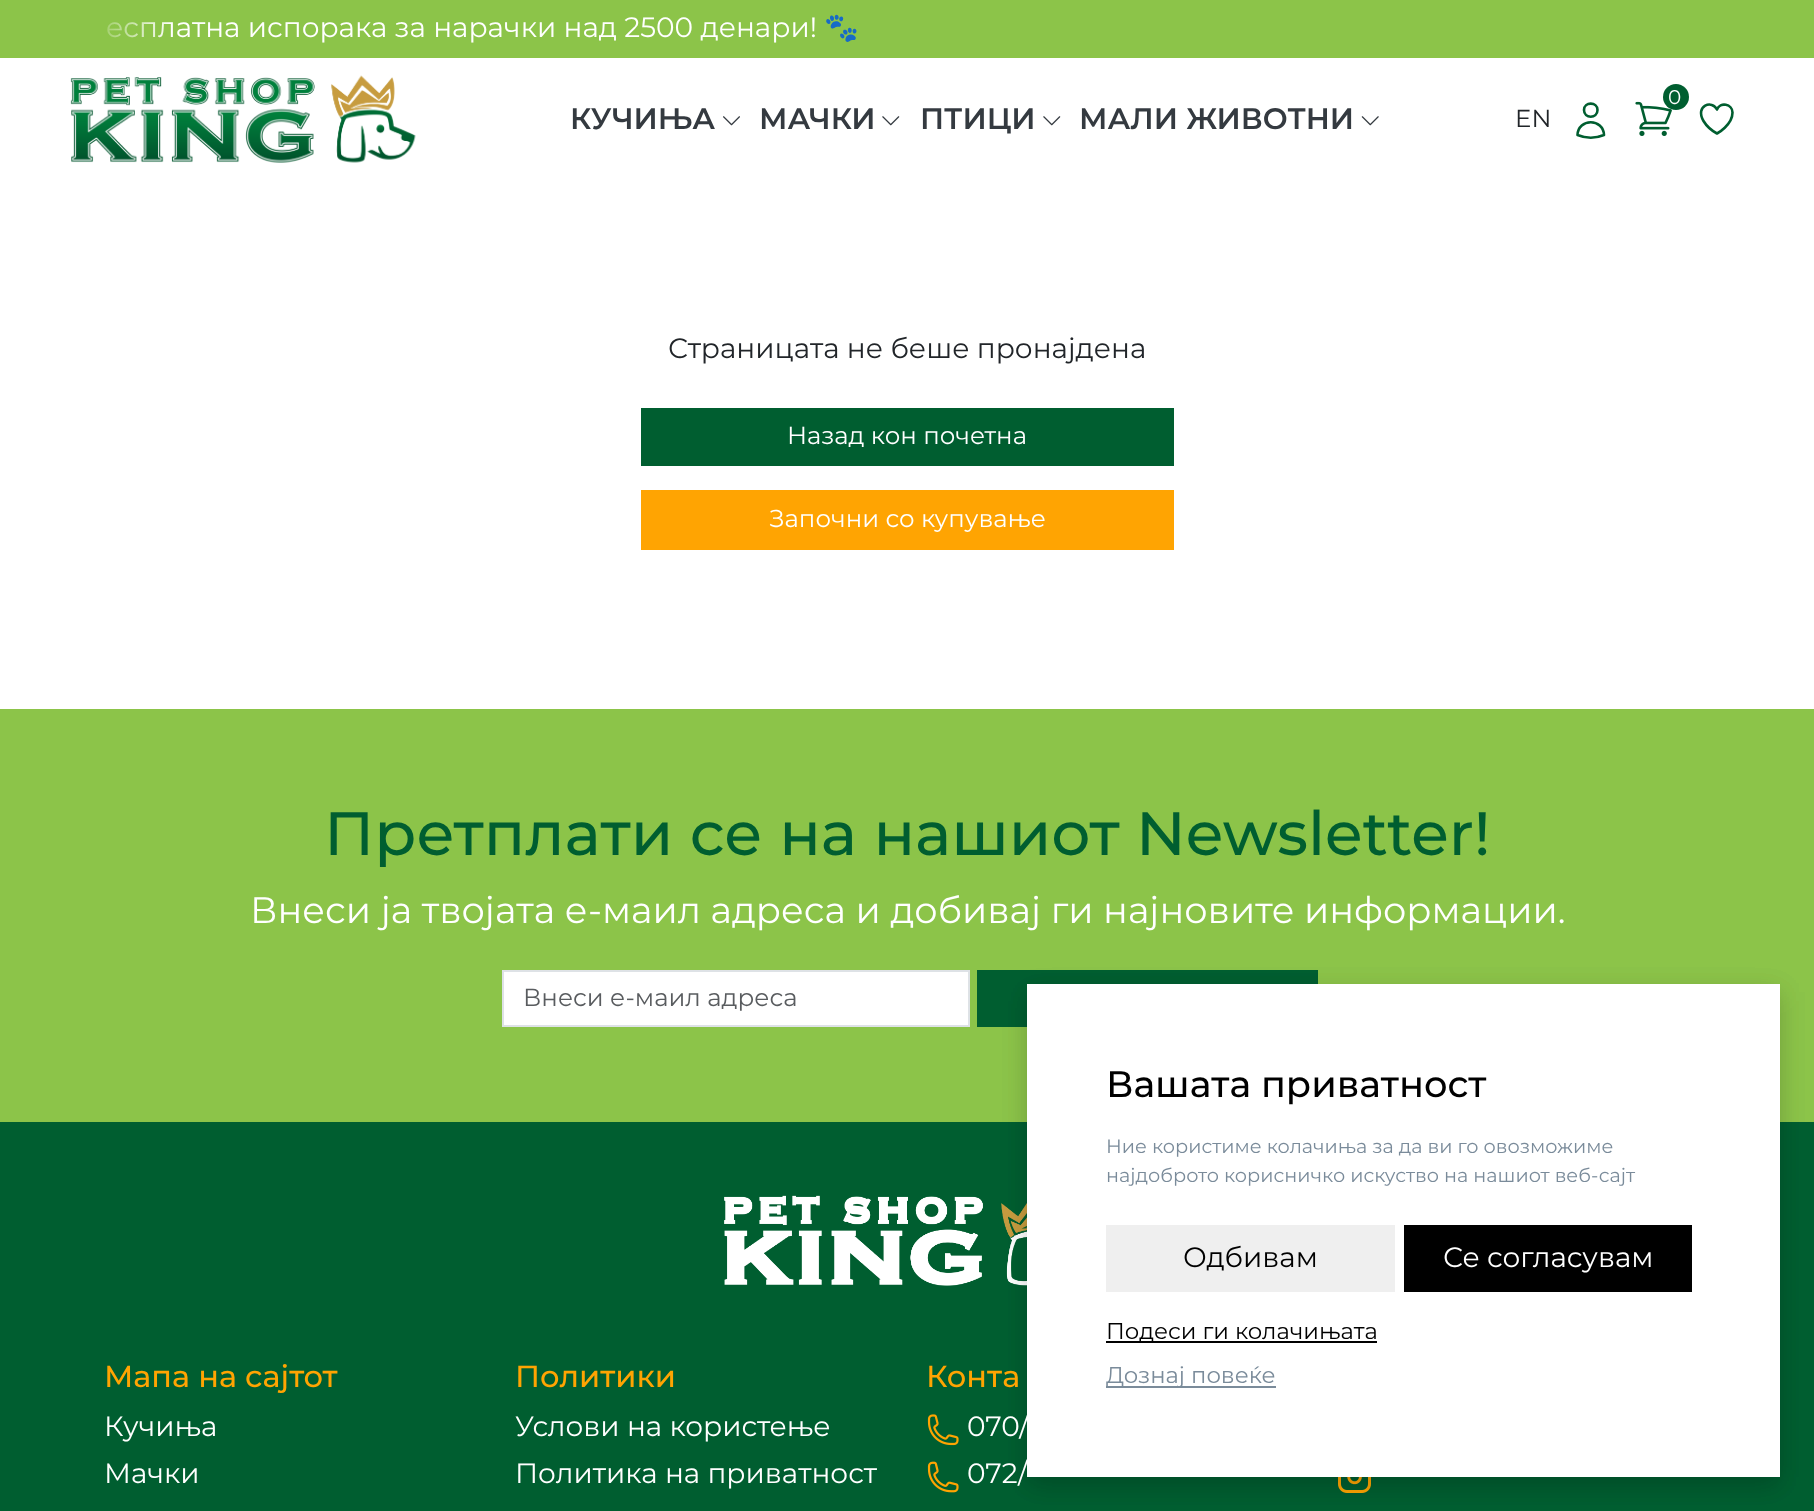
<?xml version="1.0" encoding="UTF-8"?>
<svg xmlns="http://www.w3.org/2000/svg" width="1814" height="1511">
    <defs>
        <linearGradient id="g1" gradientUnits="userSpaceOnUse" x1="86" y1="28" x2="173" y2="28"><stop offset="0" stop-color="#8CC449"/><stop offset="1" stop-color="#8CC449" stop-opacity="0"/></linearGradient>
        <filter id="blur1" x="-50%" y="-200%" width="200%" height="500%"><feGaussianBlur stdDeviation="13"/></filter>
    </defs>
    <rect width="100%" height="100%" fill="#FFFFFF"/>
    <rect x="0" y="0" width="1814" height="58" fill="#8CC449"/>
    <text x="106" y="37" font-family="Montserrat" font-size="28" fill="#FFFFFF">есплатна испорака за нарачки над 2500 денари!</text>
    <text x="824" y="37" font-family="Noto Color Emoji" font-size="28" fill="#FFFFFF">🐾</text>
    <rect x="107" y="22" width="64" height="16" fill="url(#g1)"/>
    <image x="70" y="75" width="346" height="88" href="img_01.png"/>
    <text x="570" y="129" font-family="Montserrat" font-size="29.5" font-weight="600" fill="#343A40">КУЧИЊА</text>
    <image x="723" y="116" width="17" height="10" href="img_02.png"/>
    <text x="759" y="129" font-family="Montserrat" font-size="29.5" font-weight="600" fill="#343A40">МАЧКИ</text>
    <image x="882" y="116" width="18" height="10" href="img_03.png"/>
    <text x="920" y="129" font-family="Montserrat" font-size="29.5" font-weight="600" fill="#343A40">ПТИЦИ</text>
    <image x="1043" y="116" width="18" height="10" href="img_03.png"/>
    <text x="1079" y="129" font-family="Montserrat" font-size="29.5" font-weight="600" fill="#343A40">МАЛИ ЖИВОТНИ</text>
    <image x="1361" y="116" width="18" height="10" href="img_04.png"/>
    <image x="1635" y="101" width="37" height="35" href="img_05.png"/>
    <circle cx="1676" cy="97" r="13" fill="#005E30"/>
    <text x="1668" y="104" font-family="Montserrat" font-size="20" fill="#FFFFFF">0</text>
    <text x="1515" y="127" font-family="Montserrat" font-size="24.5" fill="#212529">EN</text>
    <path d="M 1597.5 110 C 1597.5 119 1584 119 1584 110 C 1584 101.5 1597.5 101.5 1597.5 110 Z M 1577.5 135 C 1578 118 1603.5 118 1604 135 C 1595.5 138.5 1586 138.5 1577.5 135 Z" fill="none" stroke="#005E30" stroke-width="2.6" stroke-linecap="round" stroke-linejoin="round"/>
    <path d="M 1732.5 112.5 C 1732.5 104 1720 101.5 1717 109.5 C 1712.5 99.5 1694.5 105.5 1703.5 121 C 1706.5 126 1711.5 130.5 1717 133.5 C 1717 133.5 1732.5 125 1732.5 112.5 Z" fill="none" stroke="#005E30" stroke-width="2.6" stroke-linecap="round" stroke-linejoin="round"/>
    <text x="668" y="358" font-family="Montserrat" font-size="28" fill="#212529">Страницата не беше пронајдена</text>
    <rect x="641" y="408" width="533" height="58" fill="#005E30"/>
    <text x="787" y="444" font-family="Montserrat" font-size="24.5" fill="#FFFFFF">Назад кон почетна</text>
    <rect x="641" y="490" width="533" height="60" fill="#FFA402"/>
    <text x="769" y="527" font-family="Montserrat" font-size="24.5" fill="#FFFFFF">Започни со купување</text>
    <rect x="0" y="709" width="1814" height="413" fill="#8CC449"/>
    <text x="324" y="855" font-family="Montserrat" font-size="61.25" font-weight="500" fill="#005E30">Претплати се на нашиот Newsletter!</text>
    <text x="250" y="923" font-family="Montserrat" font-size="36.75" fill="#FFFFFF">Внеси ја твојата е-маил адреса и добивај ги најновите информации.</text>
    <rect x="503" y="971" width="466" height="55" fill="#FFFFFF" stroke="#DEE2E6" stroke-width="2"/>
    <text x="523" y="1006" font-family="Montserrat" font-size="24.5" fill="#595C5F">Внеси е-маил адреса</text>
    <rect x="977" y="970" width="341" height="57" fill="#005E30"/>
    <rect x="0" y="1122" width="1814" height="389" fill="#005E30"/>
    <image x="724" y="1195" width="303" height="91" href="img_06.png"/>
    <image x="1338" y="1477" width="33" height="16" href="img_09.png"/>
    <rect x="1027" y="992" width="753" height="494" fill="#000000" fill-opacity="0.1" filter="url(#blur1)"/>
    <rect x="1027" y="992" width="753" height="494" fill="#000000" fill-opacity="0.1" filter="url(#blur1)"/>
    <rect x="1027" y="984" width="753" height="493" fill="#FFFFFF"/>
    <text x="1106" y="1097" font-family="Montserrat" font-size="36.75" font-weight="500" fill="#000000">Вашата приватност</text>
    <text font-family="Montserrat" font-size="19.25" fill="#7A8B9A">
        <tspan x="1106" y="1153">Ние користиме колачиња за да ви го овозможиме</tspan>
        <tspan x="1106" y="1182">најдоброто корисничко искуство на нашиот веб-сајт</tspan>
    </text>
    <rect x="1106" y="1225" width="289" height="67" fill="#EFEFEF"/>
    <text x="1183" y="1267" font-family="Montserrat" font-size="28" fill="#000000">Одбивам</text>
    <rect x="1404" y="1225" width="288" height="67" fill="#000000"/>
    <text x="1443" y="1267" font-family="Montserrat" font-size="28" fill="#FFFFFF">Се согласувам</text>
    <rect x="1106" y="1341" width="271" height="2" fill="#000000"/>
    <text x="1106" y="1339" font-family="Montserrat" font-size="22.75" fill="#000000">Подеси ги колачињата</text>
    <rect x="1106" y="1386" width="170" height="2" fill="#7A8B9A"/>
    <text x="1106" y="1383" font-family="Montserrat" font-size="22.75" fill="#7A8B9A">Дознај повеќе</text>
    <text x="104" y="1387" font-family="Montserrat" font-size="30.5" font-weight="500" fill="#FFA402">Мапа на сајтот</text>
    <text font-family="Montserrat" font-size="28" fill="#FFFFFF">
        <tspan x="104" y="1436">Кучиња</tspan>
        <tspan x="104" y="1483">Мачки</tspan>
    </text>
    <text x="515" y="1387" font-family="Montserrat" font-size="30.5" font-weight="500" fill="#FFA402">Политики</text>
    <text font-family="Montserrat" font-size="28" fill="#FFFFFF">
        <tspan x="515" y="1436">Услови на користење</tspan>
        <tspan x="515" y="1483">Политика на приватност</tspan>
    </text>
    <text x="926" y="1387" font-family="Montserrat" font-size="30.5" font-weight="500" fill="#FFA402">Конта</text>
    <image x="927" y="1414" width="32" height="32" href="img_07.png"/>
    <text x="967" y="1436" font-family="Montserrat" font-size="28" fill="#FFFFFF">070/</text>
    <image x="927" y="1461" width="32" height="32" href="img_08.png"/>
    <text x="967" y="1483" font-family="Montserrat" font-size="28" fill="#FFFFFF">072/</text>
</svg>
